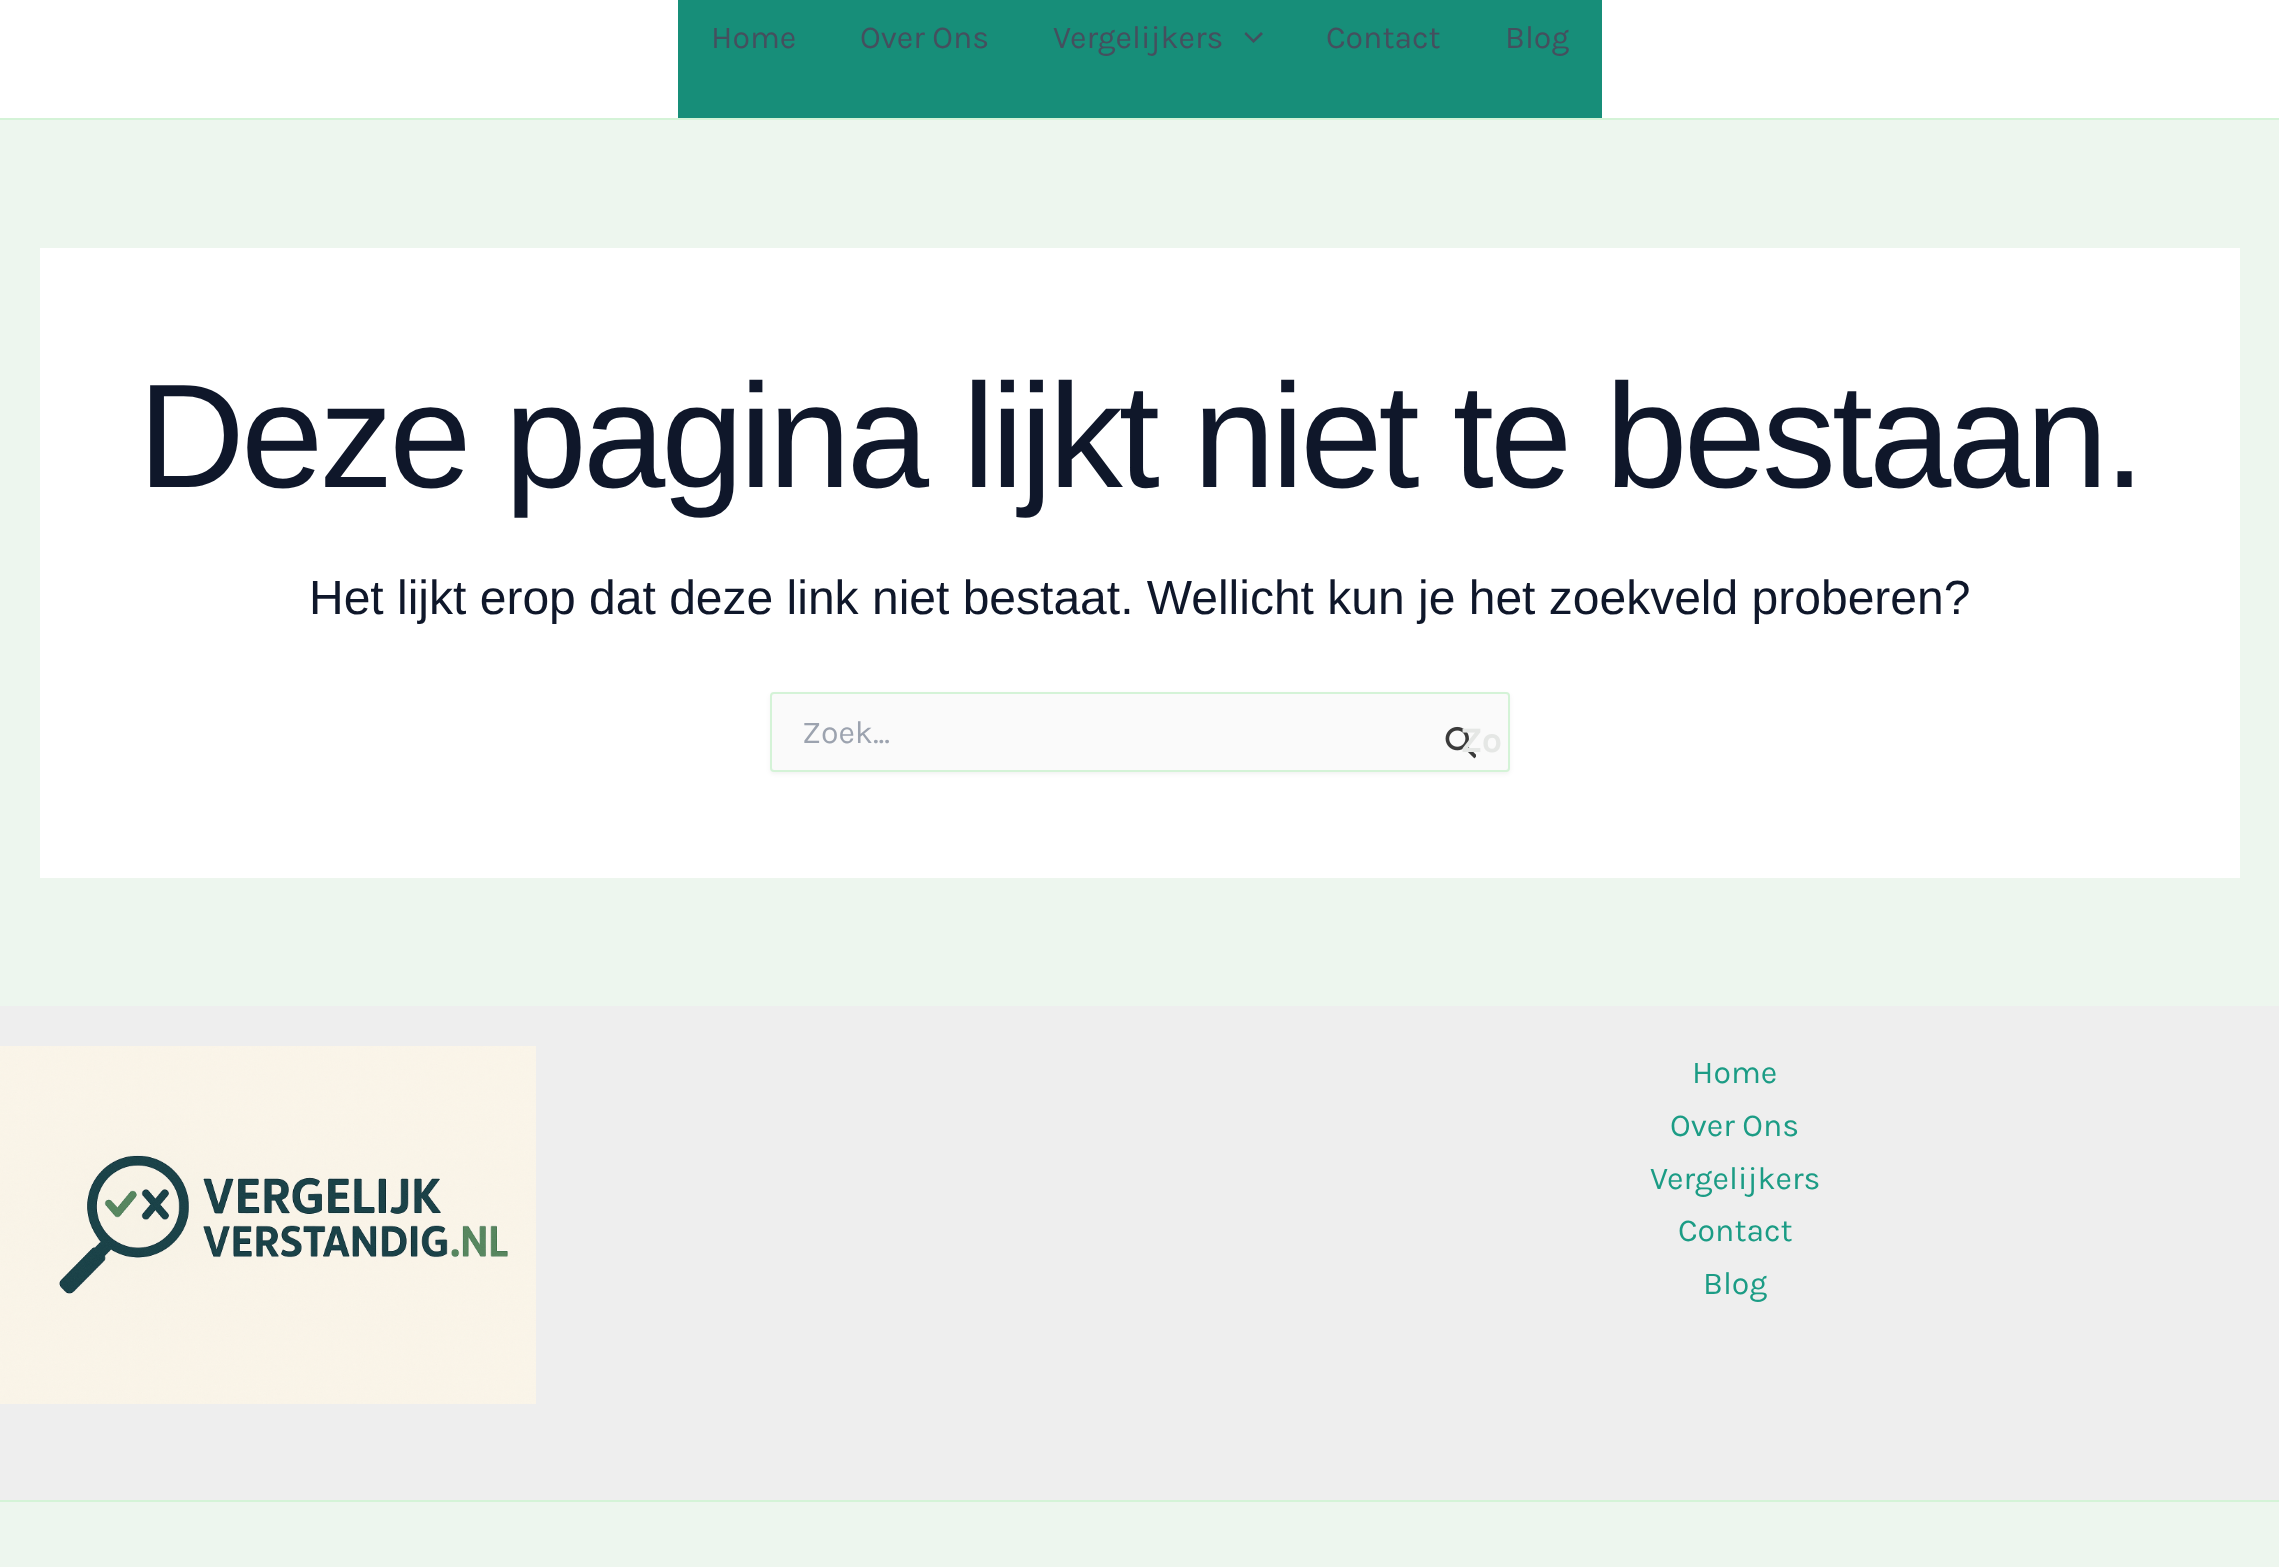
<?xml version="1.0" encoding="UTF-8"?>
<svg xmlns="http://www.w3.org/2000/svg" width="2279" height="1567">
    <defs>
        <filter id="blur1" x="-50%" y="-200%" width="200%" height="500%"><feGaussianBlur stdDeviation="2"/></filter>
    </defs>
    <rect width="100%" height="100%" fill="#EDF6EE"/>
    <rect x="0" y="0" width="2279" height="118" fill="#FFFFFF"/>
    <rect x="0" y="118" width="2279" height="2" fill="#D4F3D7"/>
    <rect x="678" y="0" width="924" height="118" fill="#178E79"/>
    <text x="711" y="48" font-family="Karla" font-size="32" fill="#454F5E">Home</text>
    <text x="860" y="48" font-family="Karla" font-size="32" fill="#454F5E">Over Ons</text>
    <text x="1053" y="48" font-family="Karla" font-size="32" fill="#454F5E">Vergelijkers</text>
    <path d="M 1244.5 34 L 1253.5 43 L 1263 34 L 1261 32 L 1253.5 39.5 L 1246 32 Z" fill="#454F5E"/>
    <text x="1326" y="48" font-family="Karla" font-size="32" fill="#454F5E">Contact</text>
    <text x="1505" y="48" font-family="Karla" font-size="32" fill="#454F5E">Blog</text>
    <rect x="40" y="248" width="2200" height="630" fill="#FFFFFF"/>
    <text x="138" y="487" font-family="Liberation Sans" font-size="148" letter-spacing="-4" fill="#0F172A">Deze pagina lijkt niet te bestaan.</text>
    <text x="309" y="614" font-family="Liberation Sans" font-size="48" fill="#0F172A">Het lijkt erop dat deze link niet bestaat. Wellicht kun je het zoekveld proberen?</text>
    <rect x="770" y="694" width="740" height="80" rx="4" fill="#000000" fill-opacity="0.05" filter="url(#blur1)"/>
    <rect x="771" y="693" width="738" height="78" rx="3" fill="#FAFAFA" stroke="#D4F3D7" stroke-width="2"/>
    <text x="802" y="743" font-family="Karla" font-size="32" fill="#9CA3AF">Zoek...</text>
    <image x="1445" y="726" width="31" height="33" href="img_01.png"/>
    <text x="1460" y="752" font-family="Karla" font-size="36" font-weight="700" letter-spacing="-1" fill="#E5E7E5">Zo</text>
    <rect x="0" y="1006" width="2279" height="494" fill="#EEEEEE"/>
    <image x="0" y="1046" width="536" height="358" href="img_02.png"/>
    <text x="1692" y="1083" font-family="Karla" font-size="32" fill="#1B9C85">Home</text>
    <text x="1670" y="1136" font-family="Karla" font-size="32" fill="#1B9C85">Over Ons</text>
    <text x="1650" y="1189" font-family="Karla" font-size="32" fill="#1B9C85">Vergelijkers</text>
    <text x="1678" y="1241" font-family="Karla" font-size="32" fill="#1B9C85">Contact</text>
    <text x="1703" y="1294" font-family="Karla" font-size="32" fill="#1B9C85">Blog</text>
    <rect x="0" y="1500" width="2279" height="2" fill="#D4F3D7"/>
</svg>
